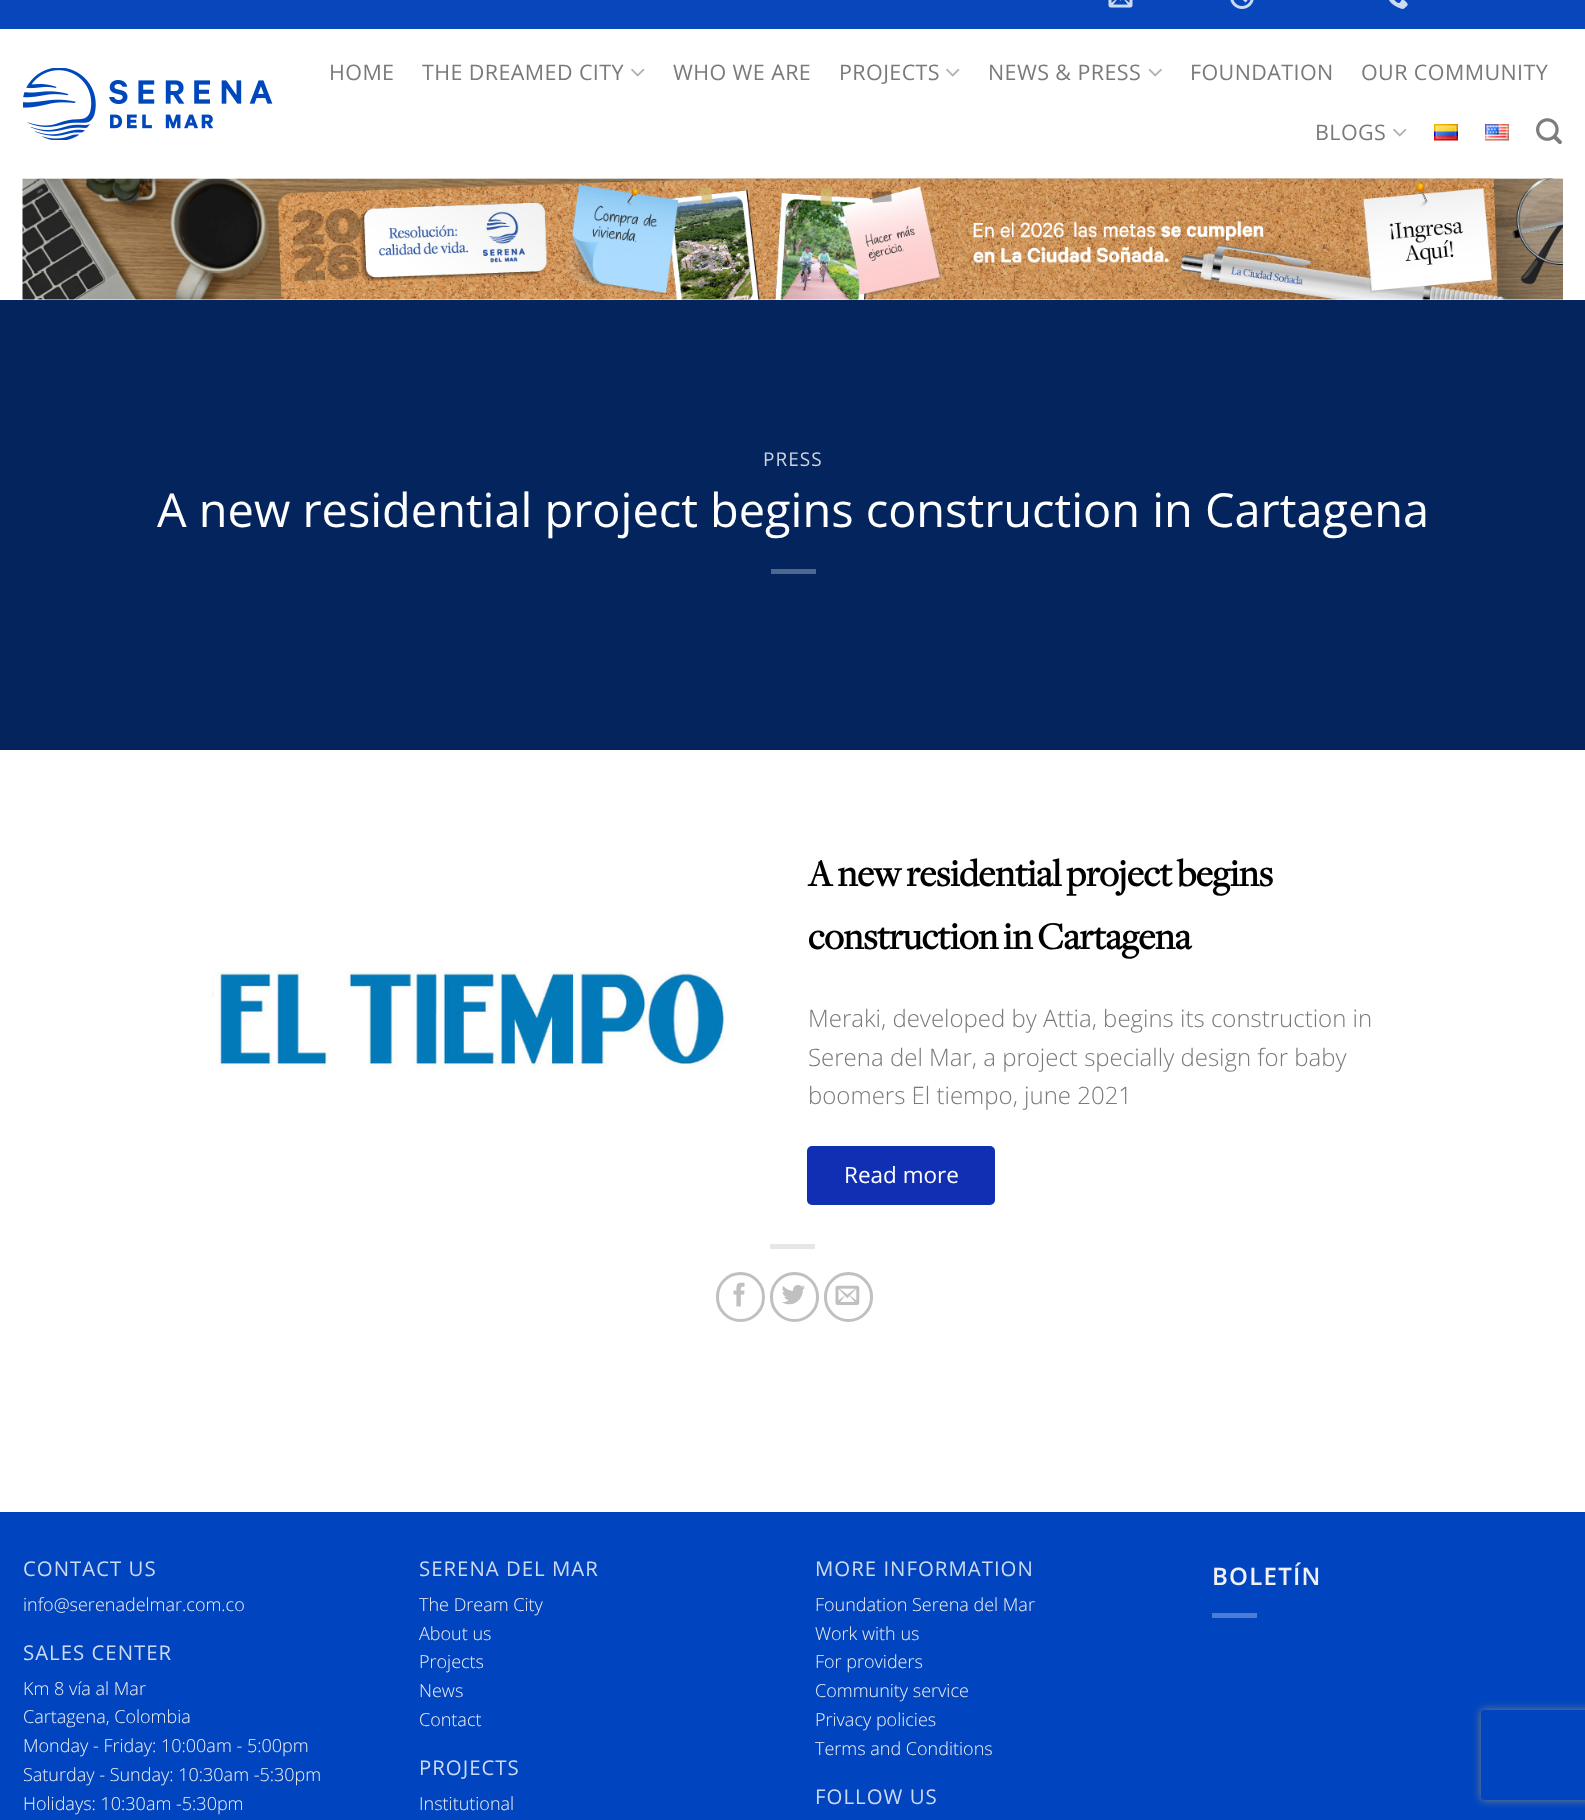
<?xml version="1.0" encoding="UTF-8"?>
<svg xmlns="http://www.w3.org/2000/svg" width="1585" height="1820">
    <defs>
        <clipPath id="clip1"><path d="M 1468 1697 H 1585 V 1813 H 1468 Z M 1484 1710 H 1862 C 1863.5 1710 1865 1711.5 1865 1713 V 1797 C 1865 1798.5 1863.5 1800 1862 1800 H 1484 C 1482.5 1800 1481 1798.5 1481 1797 V 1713 C 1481 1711.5 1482.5 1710 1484 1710 Z" clip-rule="evenodd"/></clipPath>
        <filter id="blur1" x="-50%" y="-200%" width="200%" height="500%"><feGaussianBlur stdDeviation="4"/></filter>
    </defs>
    <rect width="100%" height="100%" fill="#FFFFFF"/>
    <rect x="0" y="0" width="1585" height="29" fill="#0747BB"/>
    <image x="1108" y="0" width="25" height="8" href="img_01.png"/>
    <image x="1230" y="0" width="24" height="9" href="img_02.png"/>
    <image x="1389" y="0" width="19" height="9" href="img_03.png"/>
    <image x="23" y="68" width="250" height="72" href="img_04.png"/>
    <text x="329" y="80" font-family="Open Sans" font-size="21.5" letter-spacing="0.4" fill="#7A7A7A">HOME</text>
    <text x="422" y="80" font-family="Open Sans" font-size="21.5" letter-spacing="0.4" fill="#7A7A7A">THE DREAMED CITY</text>
    <image x="631" y="68" width="14" height="9" href="img_05.png"/>
    <text x="673" y="80" font-family="Open Sans" font-size="21.5" letter-spacing="0.4" fill="#7A7A7A">WHO WE ARE</text>
    <text x="839" y="80" font-family="Open Sans" font-size="21.5" letter-spacing="0.4" fill="#7A7A7A">PROJECTS</text>
    <image x="946" y="68" width="14" height="9" href="img_05.png"/>
    <text x="988" y="80" font-family="Open Sans" font-size="21.5" letter-spacing="0.4" fill="#7A7A7A">NEWS &amp; PRESS</text>
    <image x="1148" y="68" width="14" height="9" href="img_06.png"/>
    <text x="1190" y="80" font-family="Open Sans" font-size="21.5" letter-spacing="0.4" fill="#7A7A7A">FOUNDATION</text>
    <text x="1361" y="80" font-family="Open Sans" font-size="21.5" letter-spacing="0.4" fill="#7A7A7A">OUR COMMUNITY</text>
    <text x="1315" y="140" font-family="Open Sans" font-size="21.5" letter-spacing="0.4" fill="#7A7A7A">BLOGS</text>
    <image x="1393" y="128" width="14" height="9" href="img_05.png"/>
    <image x="1434" y="124" width="24" height="17" href="img_07.png"/>
    <image x="1485" y="124" width="24" height="17" href="img_08.png"/>
    <image x="1536" y="118" width="26" height="27" href="img_09.png"/>
    <image x="22" y="178" width="1541" height="122" href="img_10.png"/>
    <rect x="23" y="179" width="1540" height="2" fill="#777777" fill-opacity="0.1"/>
    <rect x="0" y="300" width="1585" height="450" fill="#04245D"/>
    <text x="763" y="466" font-family="Open Sans" font-size="19" letter-spacing="1" fill="#CDD3DF">PRESS</text>
    <text x="157" y="527" font-family="Open Sans" font-size="46.9" fill="#FFFFFF">A new residential project begins construction in Cartagena</text>
    <rect x="771" y="569" width="45" height="5" fill="#4F668E"/>
    <image x="212" y="967" width="512" height="102" href="img_11.png"/>
    <text font-family="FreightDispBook" font-size="39" font-weight="700" fill="#000000">
        <tspan x="808" y="886">A new residential project begins</tspan>
        <tspan x="808" y="949">construction in Cartagena</tspan>
    </text>
    <text font-family="Open Sans" font-size="24" font-weight="300" fill="#7A7A7A">
        <tspan x="808" y="1027">Meraki, developed by Attia, begins its construction in</tspan>
        <tspan x="808" y="1066">Serena del Mar, a project specially design for baby</tspan>
        <tspan x="808" y="1104">boomers El tiempo, june 2021</tspan>
    </text>
    <rect x="807" y="1146" width="188" height="59" rx="5" fill="#112FB2"/>
    <text x="844" y="1183" font-family="Open Sans" font-size="22.5" fill="#FFFFFF">Read more</text>
    <rect x="770" y="1244" width="45" height="5" fill="#E6E6E6"/>
    <rect x="717.5" y="1273.5" width="46" height="47" rx="23" fill="none" stroke="#C0C0C0" stroke-width="3"/>
    <image x="733" y="1282" width="12" height="25" href="img_12.png"/>
    <rect x="771.5" y="1273.5" width="46" height="47" rx="23" fill="none" stroke="#C0C0C0" stroke-width="3"/>
    <image x="782" y="1285" width="23" height="20" href="img_13.png"/>
    <rect x="825.5" y="1273.5" width="46" height="47" rx="23" fill="none" stroke="#C0C0C0" stroke-width="3"/>
    <image x="835" y="1285" width="25" height="20" href="img_14.png"/>
    <rect x="0" y="1514" width="1585" height="306" fill="#0045BF"/>
    <rect x="0" y="1512" width="1585" height="2" fill="#0042B5"/>
    <text x="23" y="1576" font-family="Open Sans" font-size="20.4" letter-spacing="1" fill="#CCDAF2">CONTACT US</text>
    <text x="23" y="1611" font-family="Open Sans" font-size="18" font-weight="300" fill="#F1F1F1">info@serenadelmar.com.co</text>
    <text x="23" y="1660" font-family="Open Sans" font-size="20.4" letter-spacing="1" fill="#CCDAF2">SALES CENTER</text>
    <text font-family="Open Sans" font-size="18" font-weight="300" fill="#F1F1F1">
        <tspan x="23" y="1695">Km 8 vía al Mar</tspan>
        <tspan x="23" y="1723">Cartagena, Colombia</tspan>
        <tspan x="23" y="1752">Monday - Friday: 10:00am - 5:00pm</tspan>
        <tspan x="23" y="1781">Saturday - Sunday: 10:30am -5:30pm</tspan>
        <tspan x="23" y="1810">Holidays: 10:30am -5:30pm</tspan>
    </text>
    <text x="419" y="1576" font-family="Open Sans" font-size="20.4" letter-spacing="1" fill="#CCDAF2">SERENA DEL MAR</text>
    <text font-family="Open Sans" font-size="18" font-weight="300" fill="#F1F1F1">
        <tspan x="419" y="1611">The Dream City</tspan>
        <tspan x="419" y="1640">About us</tspan>
        <tspan x="419" y="1668">Projects</tspan>
        <tspan x="419" y="1697">News</tspan>
        <tspan x="419" y="1726">Contact</tspan>
    </text>
    <text x="419" y="1775" font-family="Open Sans" font-size="20.4" letter-spacing="1" fill="#CCDAF2">PROJECTS</text>
    <text x="419" y="1810" font-family="Open Sans" font-size="18" font-weight="300" fill="#F1F1F1">Institutional</text>
    <text x="815" y="1576" font-family="Open Sans" font-size="20.4" letter-spacing="1" fill="#CCDAF2">MORE INFORMATION</text>
    <text font-family="Open Sans" font-size="18" font-weight="300" fill="#F1F1F1">
        <tspan x="815" y="1611">Foundation Serena del Mar</tspan>
        <tspan x="815" y="1640">Work with us</tspan>
        <tspan x="815" y="1668">For providers</tspan>
        <tspan x="815" y="1697">Community service</tspan>
        <tspan x="815" y="1726">Privacy policies</tspan>
        <tspan x="815" y="1755">Terms and Conditions</tspan>
    </text>
    <text x="815" y="1804" font-family="Open Sans" font-size="20.4" letter-spacing="1" fill="#CCDAF2">FOLLOW US</text>
    <text x="1212" y="1585" font-family="Open Sans" font-size="24" font-weight="600" letter-spacing="1.25" fill="#F1F1F1">BOLETÍN</text>
    <rect x="1212" y="1613" width="45" height="5" fill="#4D7DD2"/>
    <g clip-path="url(#clip1)">
        <rect x="1481" y="1710" width="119" height="90" rx="3" fill="#808080" filter="url(#blur1)"/>
    </g>
</svg>
